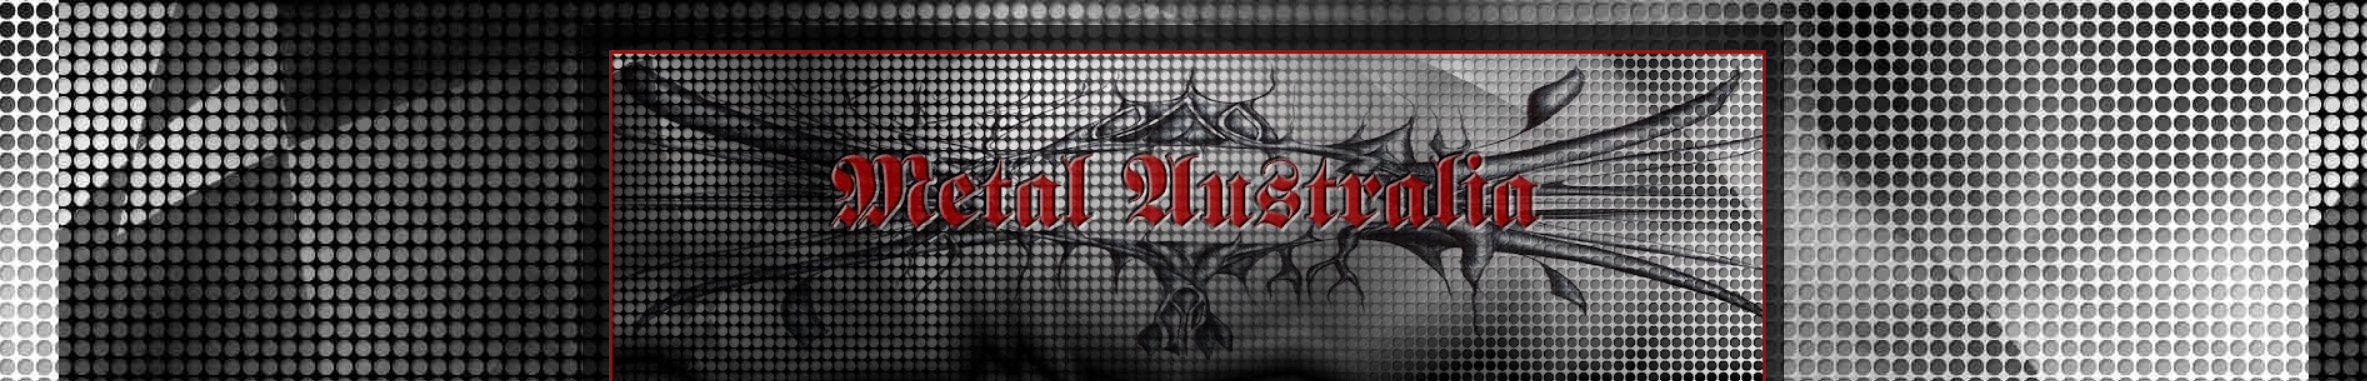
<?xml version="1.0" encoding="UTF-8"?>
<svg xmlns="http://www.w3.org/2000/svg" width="2367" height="381">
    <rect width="100%" height="100%" fill="#FFFFFF"/>
    <image x="0" y="0" width="2367" height="381" href="img_01.png"/>
    <rect x="583" y="25" width="1201" height="356" fill="#000000" fill-opacity="0.7"/>
    <rect x="611" y="52" width="1153" height="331" fill="none" stroke="#921312" stroke-width="4"/>
    <image x="612" y="53" width="1151" height="328" href="img_02.png"/>
</svg>
